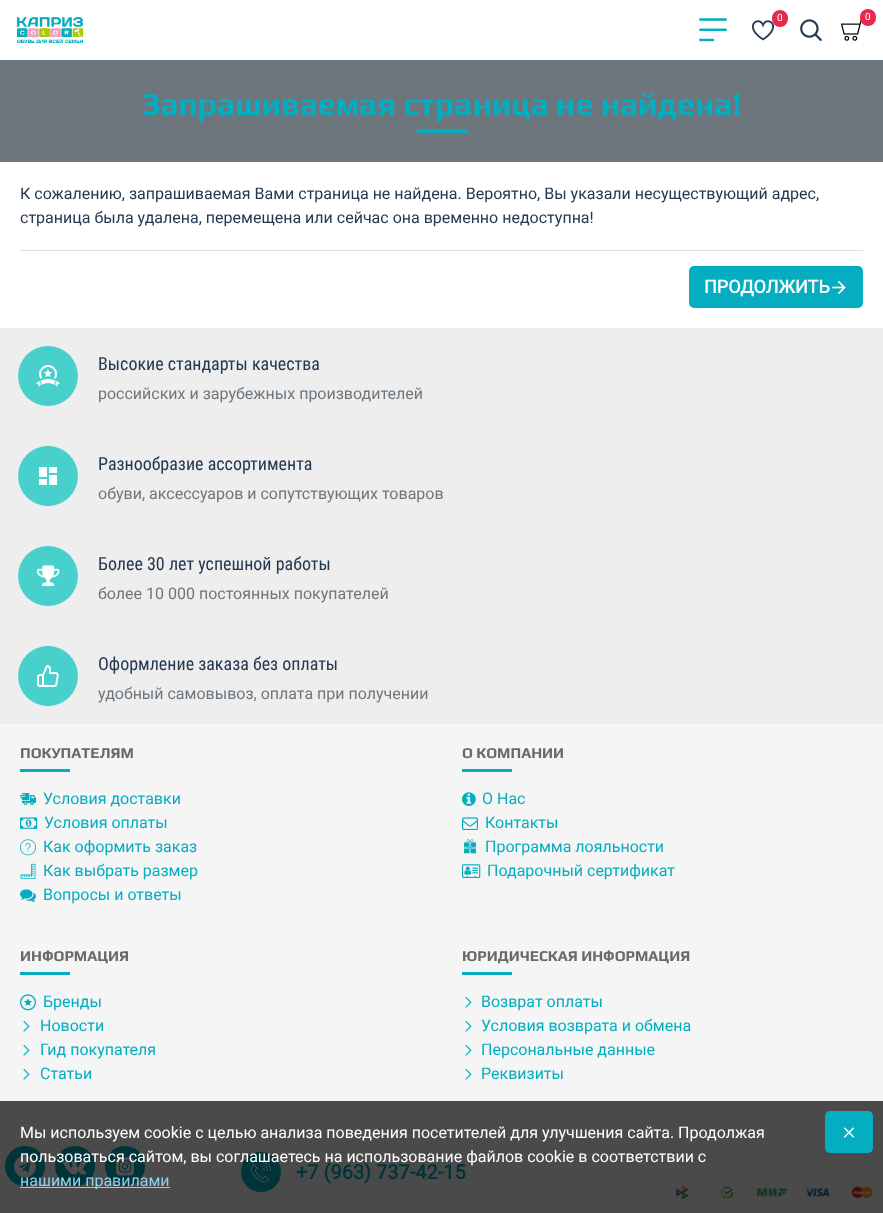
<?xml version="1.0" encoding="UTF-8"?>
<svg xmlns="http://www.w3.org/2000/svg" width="883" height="1213">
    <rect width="100%" height="100%" fill="#FFFFFF"/>
    <image x="16" y="17" width="68" height="27" href="img_01.png"/>
    <image x="699" y="18" width="28" height="24" href="img_02.png"/>
    <image x="752" y="20" width="22" height="21" href="img_03.png"/>
    <rect x="772" y="10" width="16" height="17" rx="8" fill="#E8284D"/>
    <text x="777" y="21" font-family="Roboto" font-size="10" fill="#FFFFFF">0</text>
    <image x="800" y="19" width="22" height="22" href="img_04.png"/>
    <image x="841" y="19" width="21" height="22" href="img_05.png"/>
    <rect x="860" y="9" width="16" height="17" rx="8" fill="#E8284D"/>
    <text x="865" y="20" font-family="Roboto" font-size="10" fill="#FFFFFF">0</text>
    <rect x="0" y="60" width="883" height="102" fill="#6D767D"/>
    <text x="142" y="115" font-family="Play" font-size="32" font-weight="700" fill="#04ADBF">Запрашиваемая страница не найдена!</text>
    <rect x="417" y="129" width="50" height="4" fill="#04ADBF"/>
    <text font-family="Roboto" font-size="16" fill="#233851">
        <tspan x="20" y="199">К сожалению, запрашиваемая Вами страница не найдена. Вероятно, Вы указали несуществующий адрес,</tspan>
        <tspan x="20" y="223">страница была удалена, перемещена или сейчас она временно недоступна!</tspan>
    </text>
    <rect x="20" y="250" width="843" height="1" fill="#DDDDDD"/>
    <rect x="689" y="266" width="174" height="42" rx="5" fill="#04ADBF"/>
    <text x="704" y="293" font-family="Roboto" font-size="18" font-weight="700" fill="#FFFFFF">ПРОДОЛЖИТЬ</text>
    <image x="832" y="280" width="14" height="15" href="img_06.png"/>
    <rect x="0" y="724" width="883" height="377" fill="#F5F5F5"/>
    <rect x="0" y="1101" width="883" height="112" fill="#4A4A4A"/>
    <rect x="0" y="328" width="883" height="396" fill="#EEEEEE"/>
    <circle cx="48" cy="376" r="30" fill="#48D1CC"/>
    <image x="36" y="365" width="24" height="22" href="img_07.png"/>
    <text x="98" y="370" font-family="Roboto Condensed" font-size="18" fill="#233851">Высокие стандарты качества</text>
    <text x="98" y="399" font-family="Roboto" font-size="16" fill="#6D767D">российских и зарубежных производителей</text>
    <circle cx="48" cy="476" r="30" fill="#48D1CC"/>
    <image x="39" y="467" width="18" height="18" href="img_08.png"/>
    <text x="98" y="470" font-family="Roboto Condensed" font-size="18" fill="#233851">Разнообразие ассортимента</text>
    <text x="98" y="499" font-family="Roboto" font-size="16" fill="#6D767D">обуви, аксессуаров и сопутствующих товаров</text>
    <circle cx="48" cy="576" r="30" fill="#48D1CC"/>
    <image x="37" y="565" width="23" height="21" href="img_09.png"/>
    <text x="98" y="570" font-family="Roboto Condensed" font-size="18" fill="#233851">Более 30 лет успешной работы</text>
    <text x="98" y="599" font-family="Roboto" font-size="16" fill="#6D767D">более 10 000 постоянных покупателей</text>
    <circle cx="48" cy="676" r="30" fill="#48D1CC"/>
    <image x="37" y="665" width="22" height="22" href="img_10.png"/>
    <text x="98" y="670" font-family="Roboto Condensed" font-size="18" fill="#233851">Оформление заказа без оплаты</text>
    <text x="98" y="699" font-family="Roboto" font-size="16" fill="#6D767D">удобный самовывоз, оплата при получении</text>
    <text x="20" y="758" font-family="Play" font-size="15" font-weight="700" fill="#696969">ПОКУПАТЕЛЯМ</text>
    <rect x="20" y="769" width="50" height="3" fill="#04ADBF"/>
    <image x="20" y="793" width="16" height="12" href="img_11.png"/>
    <text x="43" y="804" font-family="Roboto" font-size="16" fill="#04ADBF">Условия доставки</text>
    <image x="20" y="817" width="18" height="12" href="img_12.png"/>
    <text x="44" y="828" font-family="Roboto" font-size="16" fill="#04ADBF">Условия оплаты</text>
    <image x="20" y="839" width="16" height="17" href="img_13.png"/>
    <text x="43" y="852" font-family="Roboto" font-size="16" fill="#04ADBF">Как оформить заказ</text>
    <image x="20" y="863" width="16" height="16" href="img_14.png"/>
    <text x="43" y="876" font-family="Roboto" font-size="16" fill="#04ADBF">Как выбрать размер</text>
    <image x="20" y="889" width="16" height="13" href="img_15.png"/>
    <text x="43" y="900" font-family="Roboto" font-size="16" fill="#04ADBF">Вопросы и ответы</text>
    <text x="462" y="758" font-family="Play" font-size="15" font-weight="700" fill="#696969">О КОМПАНИИ</text>
    <rect x="462" y="769" width="50" height="3" fill="#04ADBF"/>
    <image x="462" y="792" width="14" height="14" href="img_16.png"/>
    <text x="482" y="804" font-family="Roboto" font-size="16" fill="#04ADBF">О Нас</text>
    <image x="462" y="817" width="16" height="13" href="img_17.png"/>
    <text x="485" y="828" font-family="Roboto" font-size="16" fill="#04ADBF">Контакты</text>
    <image x="464" y="839" width="12" height="15" href="img_18.png"/>
    <text x="485" y="852" font-family="Roboto" font-size="16" fill="#04ADBF">Программа лояльности</text>
    <image x="462" y="864" width="19" height="14" href="img_19.png"/>
    <text x="487" y="876" font-family="Roboto" font-size="16" fill="#04ADBF">Подарочный сертификат</text>
    <text x="20" y="961" font-family="Play" font-size="15" font-weight="700" fill="#696969">ИНФОРМАЦИЯ</text>
    <rect x="20" y="972" width="50" height="3" fill="#04ADBF"/>
    <image x="20" y="994" width="16" height="17" href="img_20.png"/>
    <text x="43" y="1007" font-family="Roboto" font-size="16" fill="#04ADBF">Бренды</text>
    <image x="23" y="1021" width="7" height="11" href="img_21.png"/>
    <text x="40" y="1031" font-family="Roboto" font-size="16" fill="#04ADBF">Новости</text>
    <image x="23" y="1045" width="7" height="11" href="img_21.png"/>
    <text x="40" y="1055" font-family="Roboto" font-size="16" fill="#04ADBF">Гид покупателя</text>
    <image x="23" y="1069" width="7" height="11" href="img_21.png"/>
    <text x="40" y="1079" font-family="Roboto" font-size="16" fill="#04ADBF">Статьи</text>
    <text x="462" y="961" font-family="Play" font-size="15" font-weight="700" fill="#696969">ЮРИДИЧЕСКАЯ ИНФОРМАЦИЯ</text>
    <rect x="462" y="972" width="50" height="3" fill="#04ADBF"/>
    <image x="465" y="997" width="7" height="11" href="img_21.png"/>
    <text x="481" y="1007" font-family="Roboto" font-size="16" fill="#04ADBF">Возврат оплаты</text>
    <image x="465" y="1021" width="7" height="11" href="img_21.png"/>
    <text x="481" y="1031" font-family="Roboto" font-size="16" fill="#04ADBF">Условия возврата и обмена</text>
    <image x="465" y="1045" width="7" height="11" href="img_21.png"/>
    <text x="481" y="1055" font-family="Roboto" font-size="16" fill="#04ADBF">Персональные данные</text>
    <image x="465" y="1069" width="7" height="11" href="img_21.png"/>
    <text x="481" y="1079" font-family="Roboto" font-size="16" fill="#04ADBF">Реквизиты</text>
    <circle cx="25" cy="1166" r="20" fill="#013439"/>
    <image x="14" y="1155" width="22" height="23" href="img_22.png"/>
    <circle cx="75" cy="1166" r="20" fill="#013439"/>
    <image x="63" y="1161" width="24" height="14" href="img_23.png"/>
    <circle cx="125" cy="1166" r="20" fill="#013439"/>
    <image x="116" y="1157" width="18" height="19" href="img_24.png"/>
    <circle cx="261" cy="1172" r="20" fill="#013439"/>
    <image x="250" y="1162" width="22" height="21" href="img_25.png"/>
    <text x="296" y="1179" font-family="Roboto" font-size="20" font-weight="700" fill="#013439">+7 (963) 737-42-15</text>
    <image x="676" y="1185" width="13" height="15" href="img_26.png"/>
    <image x="720" y="1186" width="14" height="13" href="img_27.png"/>
    <image x="756" y="1188" width="32" height="9" href="img_28.png"/>
    <image x="804" y="1188" width="26" height="9" href="img_29.png"/>
    <image x="851" y="1186" width="22" height="13" href="img_30.png"/>
    <text font-family="Roboto" font-size="16" fill="#FFFFFF">
        <tspan x="20" y="1138">Мы используем cookie с целью анализа поведения посетителей для улучшения сайта. Продолжая</tspan>
        <tspan x="20" y="1162">пользоваться сайтом, вы соглашаетесь на использование файлов cookie в соответствии с</tspan>
    </text>
    <rect x="20" y="1187" width="150" height="1" fill="#8FD2EE"/>
    <text x="20" y="1186" font-family="Roboto" font-size="16" fill="#8FD2EE">нашими правилами</text>
    <rect x="825" y="1111" width="48" height="42" rx="5" fill="#04ADBF"/>
    <image x="843" y="1127" width="12" height="11" href="img_31.png"/>
</svg>
